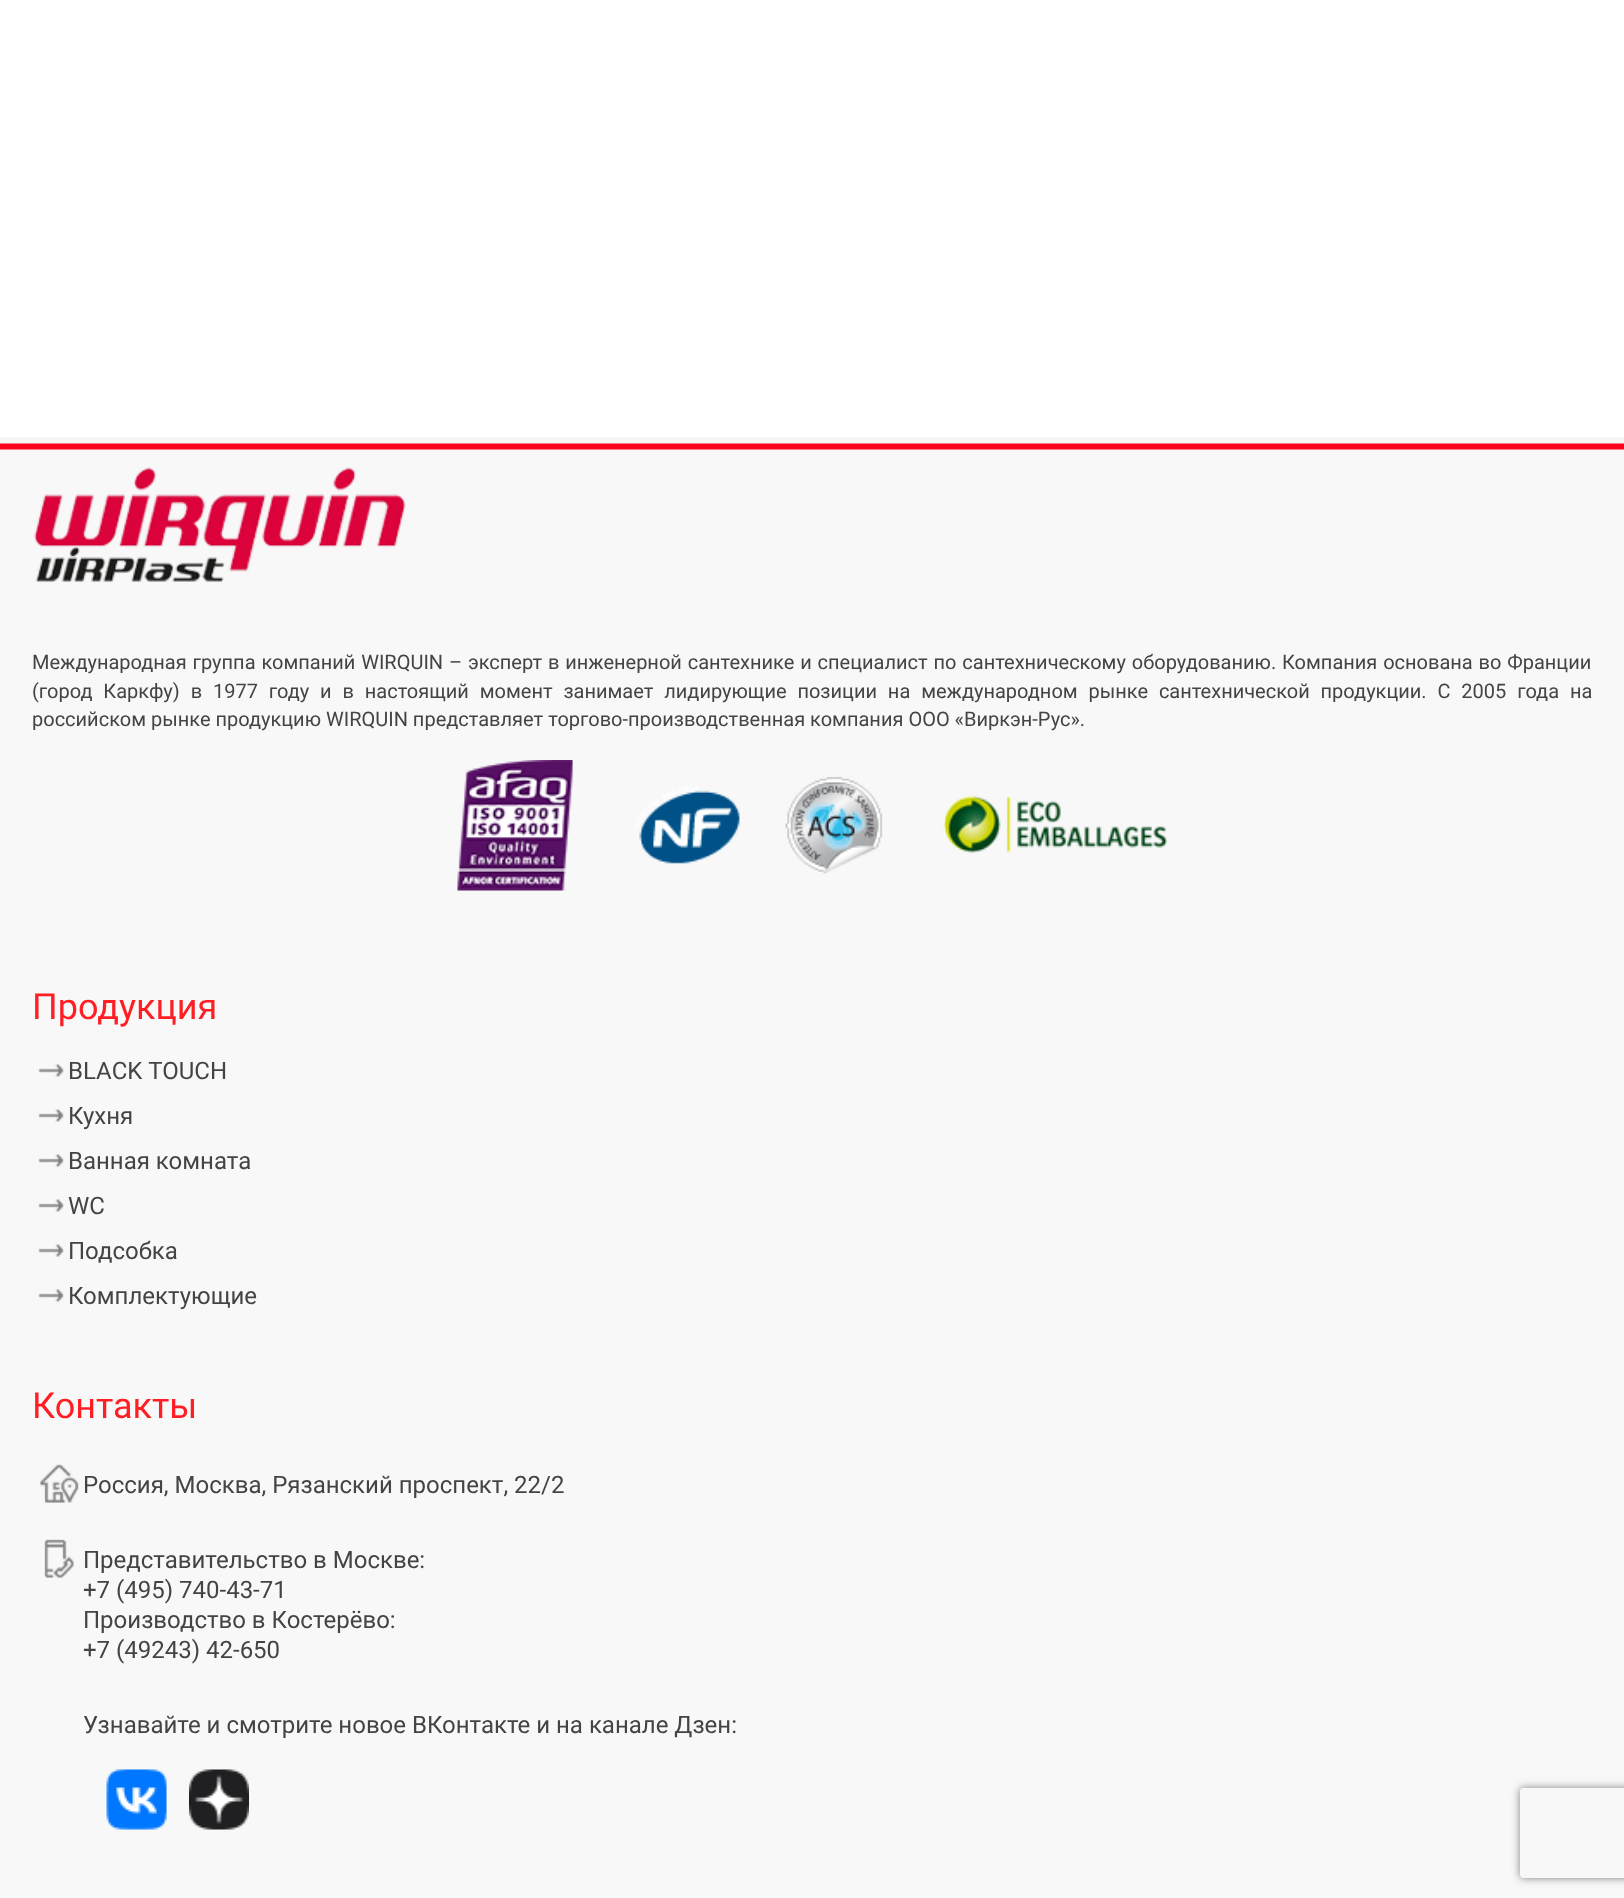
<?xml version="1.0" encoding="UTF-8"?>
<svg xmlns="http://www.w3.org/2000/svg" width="1624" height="1898">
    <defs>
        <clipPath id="clip1"><path d="M 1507 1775 H 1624 V 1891 H 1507 Z M 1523 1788 H 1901 C 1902.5 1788 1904 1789.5 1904 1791 V 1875 C 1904 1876.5 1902.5 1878 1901 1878 H 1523 C 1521.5 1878 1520 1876.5 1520 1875 V 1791 C 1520 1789.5 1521.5 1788 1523 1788 Z" clip-rule="evenodd"/></clipPath>
        <filter id="blur1" x="-50%" y="-200%" width="200%" height="500%"><feGaussianBlur stdDeviation="4"/></filter>
    </defs>
    <rect width="100%" height="100%" fill="#FFFFFF"/>
    <rect x="0" y="450" width="1624" height="1448" fill="#F8F8F8"/>
    <image x="0" y="437" width="1624" height="13" href="img_01.png"/>
    <image x="34" y="467" width="372" height="115" href="img_02.png"/>
    <text font-family="Roboto" font-size="20" fill="#444444">
        <tspan x="32" y="669" word-spacing="0.9">Международная группа компаний WIRQUIN – эксперт в инженерной сантехнике и специалист по сантехническому оборудованию. Компания основана во Франции</tspan>
        <tspan x="32" y="698" word-spacing="5.9">(город Каркфу) в 1977 году и в настоящий момент занимает лидирующие позиции на международном рынке сантехнической продукции. С 2005 года на</tspan>
        <tspan x="32" y="726">российском рынке продукцию WIRQUIN представляет торгово-производственная компания ООО «Виркэн-Рус».</tspan>
    </text>
    <image x="457" y="760" width="710" height="131" href="img_03.png"/>
    <text x="32" y="1019" font-family="Roboto" font-size="36" fill="#FF1E24">Продукция</text>
    <image x="38" y="1064" width="26" height="13" href="img_04.png"/>
    <text x="68" y="1079" font-family="Roboto" font-size="24" fill="#444444">BLACK TOUCH</text>
    <image x="38" y="1109" width="26" height="13" href="img_04.png"/>
    <text x="68" y="1124" font-family="Roboto" font-size="24" fill="#444444">Кухня</text>
    <image x="38" y="1154" width="26" height="13" href="img_04.png"/>
    <text x="68" y="1169" font-family="Roboto" font-size="24" fill="#444444">Ванная комната</text>
    <image x="38" y="1199" width="26" height="13" href="img_04.png"/>
    <text x="68" y="1214" font-family="Roboto" font-size="24" fill="#444444">WC</text>
    <image x="38" y="1244" width="26" height="13" href="img_04.png"/>
    <text x="68" y="1259" font-family="Roboto" font-size="24" fill="#444444">Подсобка</text>
    <image x="38" y="1289" width="26" height="13" href="img_04.png"/>
    <text x="68" y="1304" font-family="Roboto" font-size="24" fill="#444444">Комплектующие</text>
    <text x="32" y="1418" font-family="Roboto" font-size="36" fill="#FF1E24">Контакты</text>
    <image x="40" y="1464" width="39" height="39" href="img_05.png"/>
    <text x="83" y="1493" font-family="Roboto" font-size="24" fill="#444444">Россия, Москва, Рязанский проспект, 22/2</text>
    <image x="44" y="1539" width="30" height="39" href="img_06.png"/>
    <text font-family="Roboto" font-size="24" fill="#444444">
        <tspan x="83" y="1568">Представительство в Москве:</tspan>
        <tspan x="83" y="1598">+7 (495) 740-43-71</tspan>
        <tspan x="83" y="1628">Производство в Костерёво:</tspan>
        <tspan x="83" y="1658">+7 (49243) 42-650</tspan>
    </text>
    <text x="83" y="1733" font-family="Roboto" font-size="24" fill="#444444">Узнавайте и смотрите новое ВКонтакте и на канале Дзен:</text>
    <image x="106" y="1769" width="61" height="61" href="img_07.png"/>
    <image x="189" y="1769" width="60" height="61" href="img_08.png"/>
    <g clip-path="url(#clip1)">
        <rect x="1520" y="1788" width="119" height="90" rx="3" fill="#808080" filter="url(#blur1)"/>
    </g>
</svg>
